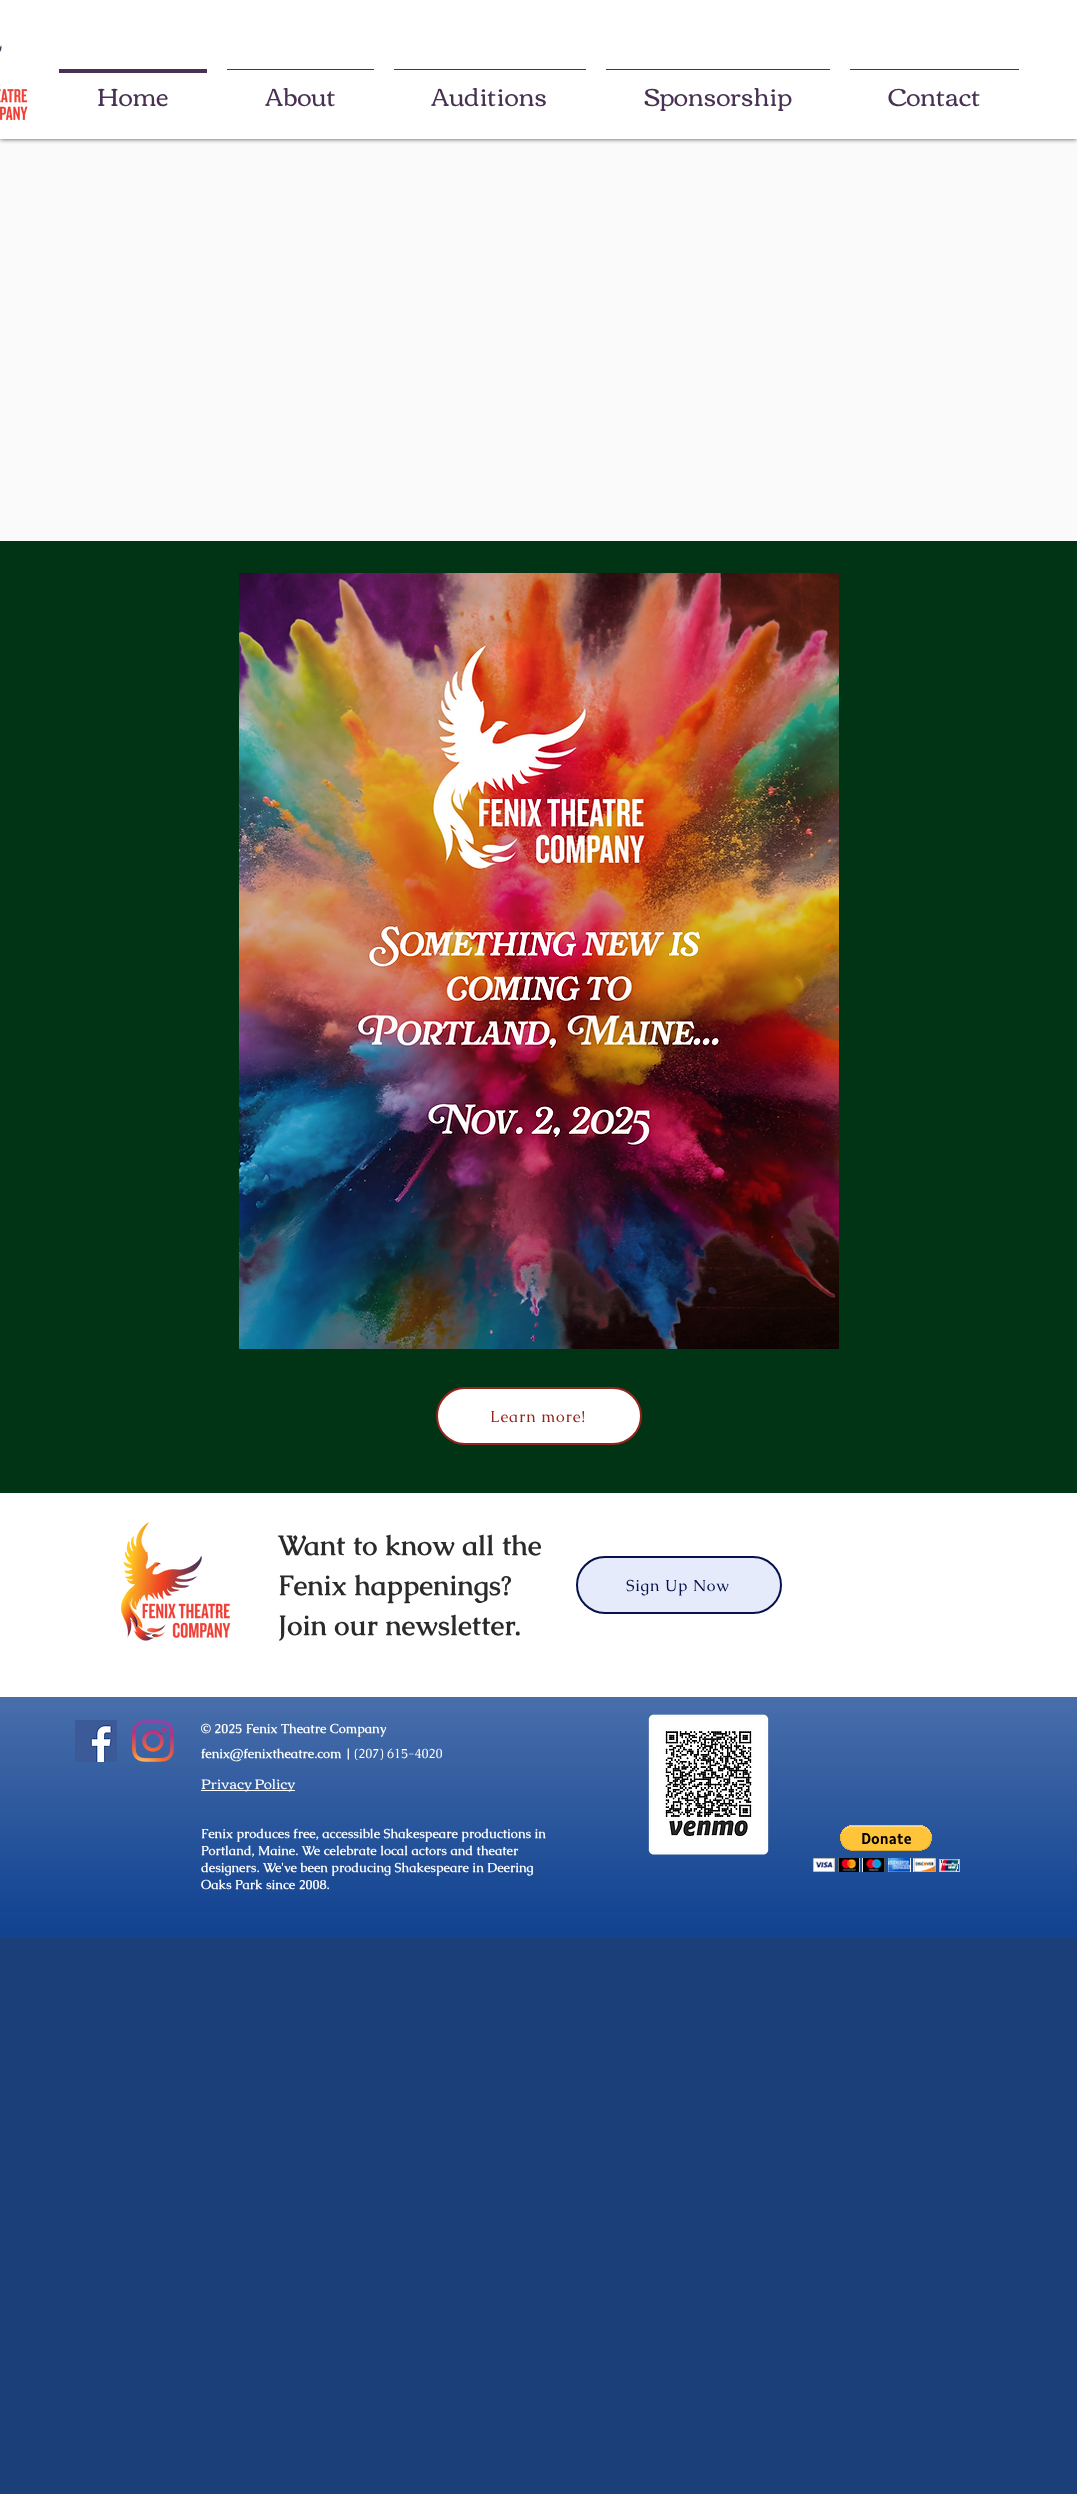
<?xml version="1.0" encoding="UTF-8"?>
<svg xmlns="http://www.w3.org/2000/svg" width="1077" height="2494">
    <defs>
        <filter id="blur1" x="-50%" y="-200%" width="200%" height="500%"><feGaussianBlur stdDeviation="2.5"/></filter>
    </defs>
    <rect width="100%" height="100%" fill="#1A3F79"/>
    <rect x="0" y="139" width="1077" height="402" fill="#FAFAFA"/>
    <rect x="0" y="0" width="1077" height="139" fill="#000000" fill-opacity="0.7" filter="url(#blur1)"/>
    <rect x="0" y="0" width="1077" height="139" fill="#FFFFFF"/>
    <image x="0" y="45" width="28" height="76" href="img_01.png"/>
    <rect x="59" y="69" width="148" height="4" fill="#493153"/>
    <text x="97" y="106" font-family="Corben" font-size="25" fill="#493153">Home</text>
    <rect x="227" y="69" width="147" height="1" fill="#493153"/>
    <text x="265" y="106" font-family="Corben" font-size="25" fill="#493153">About</text>
    <rect x="394" y="69" width="192" height="1" fill="#493153"/>
    <text x="431" y="106" font-family="Corben" font-size="25" fill="#493153">Auditions</text>
    <rect x="606" y="69" width="224" height="1" fill="#493153"/>
    <text x="644" y="106" font-family="Corben" font-size="25" fill="#493153">Sponsorship</text>
    <rect x="850" y="69" width="169" height="1" fill="#493153"/>
    <text x="888" y="106" font-family="Corben" font-size="25" fill="#493153">Contact</text>
    <rect x="0" y="541" width="1077" height="952" fill="#003414"/>
    <image x="239" y="573" width="600" height="776" href="img_02.png"/>
    <rect x="437" y="1388" width="204" height="56" rx="28" fill="#FFFFFF" stroke="#91251D" stroke-width="2"/>
    <text x="490" y="1422" font-family="Caudex" font-size="16" letter-spacing="0.75" fill="#91251D">Learn more!</text>
    <rect x="0" y="1493" width="1077" height="204" fill="#FFFFFF"/>
    <image x="120" y="1522" width="111" height="119" href="img_03.png"/>
    <text font-family="Caudex" font-size="28" font-weight="700" fill="#2A2A2A">
        <tspan x="278" y="1555">Want to know all the</tspan>
        <tspan x="278" y="1595">Fenix happenings?</tspan>
        <tspan x="278" y="1635">Join our newsletter.</tspan>
    </text>
    <rect x="577" y="1557" width="204" height="56" rx="28" fill="#E5EBFA" stroke="#05114D" stroke-width="2"/>
    <text x="626" y="1591" font-family="Caudex" font-size="16" letter-spacing="0.75" fill="#05114D">Sign Up Now</text>
    <rect x="0" y="1697" width="1077" height="241" fill="#0A3D8E"/>
    <image x="0" y="1697" width="1077" height="241" href="img_04.png"/>
    <image x="75" y="1720" width="42" height="42" href="img_05.png"/>
    <image x="132" y="1720" width="42" height="42" href="img_06.png"/>
    <text x="201" y="1733" font-family="Caudex" font-size="13" font-weight="700" fill="#FFFFFF">© 2025 Fenix Theatre Company</text>
    <image x="648" y="1714" width="121" height="141" href="img_07.png"/>
    <text x="201" y="1758" font-family="Caudex" font-size="13" font-weight="700" fill="#FFFFFF">fenix@fenixtheatre.com |</text>
    <text x="354" y="1758" font-family="Caudex" font-size="13" fill="#FFFFFF">(207) 615-4020</text>
    <rect x="201" y="1790" width="94" height="1" fill="#FFFFFF"/>
    <text x="201" y="1789" font-family="Corben" font-size="14" fill="#FFFFFF">Privacy Policy</text>
    <text font-family="Caudex" font-size="13" font-weight="700" fill="#FFFFFF">
        <tspan x="201" y="1838">Fenix produces free, accessible Shakespeare productions in</tspan>
        <tspan x="201" y="1855">Portland, Maine. We celebrate local actors and theater</tspan>
        <tspan x="201" y="1872">designers. We've been producing Shakespeare in Deering</tspan>
        <tspan x="201" y="1889">Oaks Park since 2008.</tspan>
    </text>
    <image x="813" y="1825" width="147" height="47" href="img_08.png"/>
</svg>
